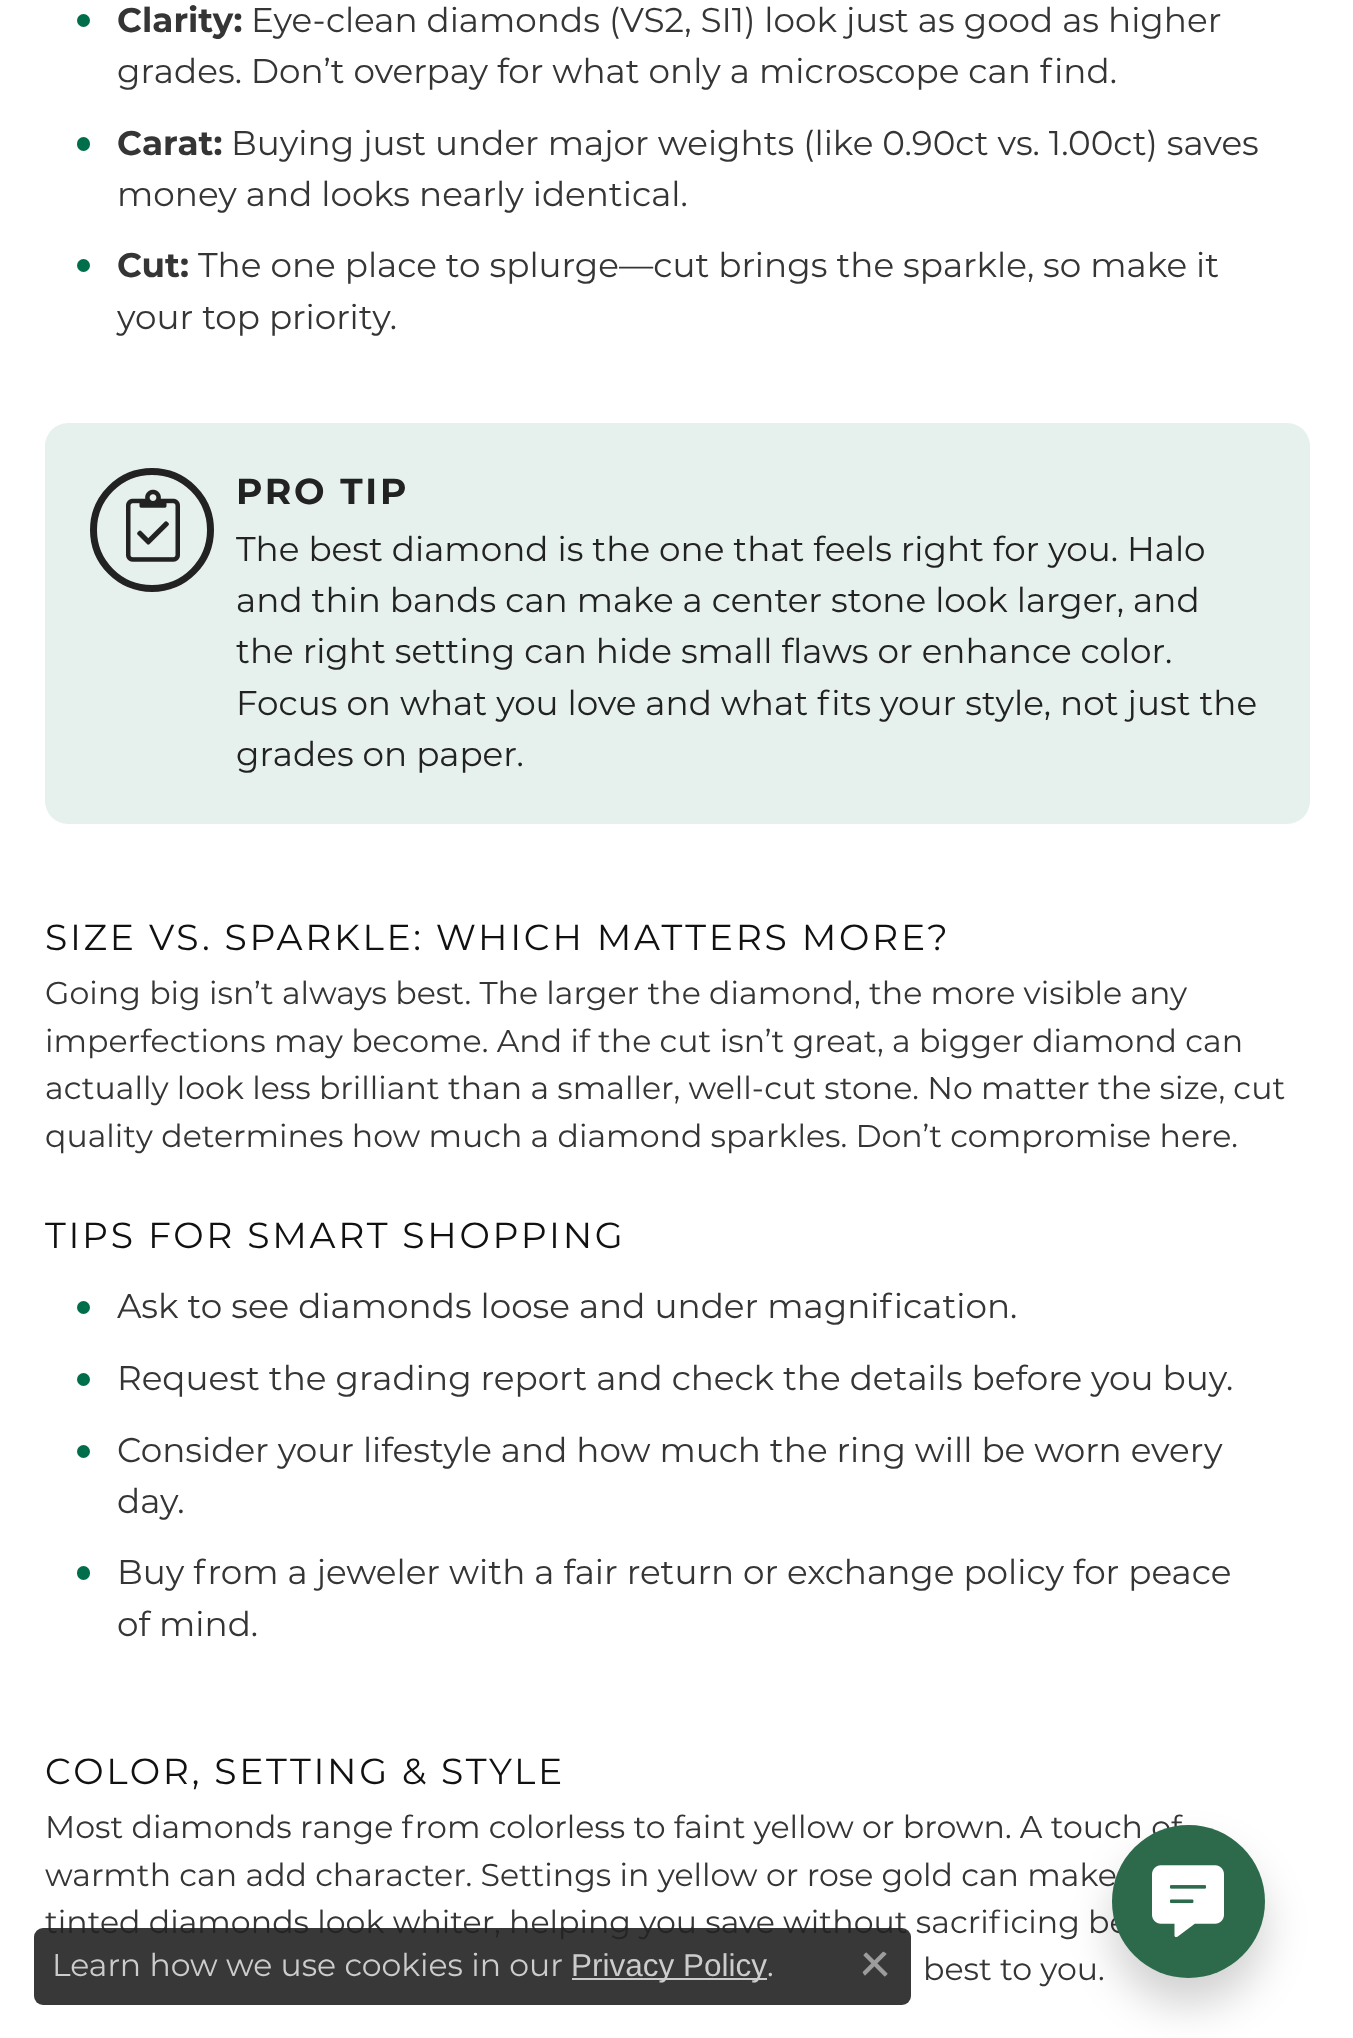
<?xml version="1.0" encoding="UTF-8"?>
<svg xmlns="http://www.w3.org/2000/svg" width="1353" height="2038">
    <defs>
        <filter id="blur1" x="-50%" y="-200%" width="200%" height="500%"><feGaussianBlur stdDeviation="21.5"/></filter>
    </defs>
    <rect width="100%" height="100%" fill="#FFFFFF"/>
    <circle cx="83.5" cy="20.5" r="6.5" fill="#006E4A"/>
    <text x="117" y="32" font-family="Montserrat" font-size="34.2" font-weight="700" fill="#353535">Clarity:</text>
    <text x="251" y="32" font-family="Montserrat" font-size="34.2" fill="#353535">Eye-clean diamonds (VS2, SI1) look just as good as higher</text>
    <text x="117" y="83" font-family="Montserrat" font-size="34.2" fill="#353535">grades. Don’t overpay for what only a microscope can find.</text>
    <rect x="77" y="137" width="13" height="14" rx="6.5" fill="#006E4A"/>
    <text x="117" y="155" font-family="Montserrat" font-size="34.2" font-weight="700" fill="#353535">Carat:</text>
    <text x="231" y="155" font-family="Montserrat" font-size="34.2" fill="#353535">Buying just under major weights (like 0.90ct vs. 1.00ct) saves</text>
    <text x="117" y="206" font-family="Montserrat" font-size="34.2" fill="#353535">money and looks nearly identical.</text>
    <circle cx="83.5" cy="265.5" r="6.5" fill="#006E4A"/>
    <text x="117" y="277" font-family="Montserrat" font-size="34.2" font-weight="700" fill="#353535">Cut:</text>
    <text x="198" y="277" font-family="Montserrat" font-size="34.2" fill="#353535">The one place to splurge—cut brings the sparkle, so make it</text>
    <text x="117" y="329" font-family="Montserrat" font-size="34.2" fill="#353535">your top priority.</text>
    <rect x="45" y="423" width="1265" height="401" rx="23" fill="#E6F1ED"/>
    <circle cx="152" cy="530" r="58.5" fill="none" stroke="#222222" stroke-width="7"/>
    <image x="126" y="489" width="54" height="73" href="img_01.png"/>
    <text x="236" y="504" font-family="Montserrat" font-size="36.2" font-weight="700" letter-spacing="2.7" fill="#222222">PRO TIP</text>
    <text font-family="Montserrat" font-size="34.2" fill="#222222">
        <tspan x="236" y="561">The best diamond is the one that feels right for you. Halo</tspan>
        <tspan x="236" y="612">and thin bands can make a center stone look larger, and</tspan>
        <tspan x="236" y="663">the right setting can hide small flaws or enhance color.</tspan>
        <tspan x="236" y="715">Focus on what you love and what fits your style, not just the</tspan>
        <tspan x="236" y="766">grades on paper.</tspan>
    </text>
    <text x="45" y="950" font-family="Montserrat" font-size="36.2" letter-spacing="2.7" fill="#111111">SIZE VS. SPARKLE: WHICH MATTERS MORE?</text>
    <text font-family="Montserrat" font-size="31.6" fill="#353535">
        <tspan x="45" y="1004">Going big isn’t always best. The larger the diamond, the more visible any</tspan>
        <tspan x="45" y="1052">imperfections may become. And if the cut isn’t great, a bigger diamond can</tspan>
        <tspan x="45" y="1099">actually look less brilliant than a smaller, well-cut stone. No matter the size, cut</tspan>
        <tspan x="45" y="1147">quality determines how much a diamond sparkles. Don’t compromise here.</tspan>
    </text>
    <text x="45" y="1248" font-family="Montserrat" font-size="36.2" letter-spacing="2.7" fill="#111111">TIPS FOR SMART SHOPPING</text>
    <circle cx="83.5" cy="1307.5" r="6.5" fill="#006E4A"/>
    <text x="117" y="1318" font-family="Montserrat" font-size="34.2" fill="#353535">Ask to see diamonds loose and under magnification.</text>
    <circle cx="83.5" cy="1379.5" r="6.5" fill="#006E4A"/>
    <text x="117" y="1390" font-family="Montserrat" font-size="34.2" fill="#353535">Request the grading report and check the details before you buy.</text>
    <circle cx="83.5" cy="1451.5" r="6.5" fill="#006E4A"/>
    <text font-family="Montserrat" font-size="34.2" fill="#353535">
        <tspan x="117" y="1462">Consider your lifestyle and how much the ring will be worn every</tspan>
        <tspan x="117" y="1513">day.</tspan>
    </text>
    <rect x="77" y="1566" width="13" height="14" rx="6.5" fill="#006E4A"/>
    <text font-family="Montserrat" font-size="34.2" fill="#353535">
        <tspan x="117" y="1584">Buy from a jeweler with a fair return or exchange policy for peace</tspan>
        <tspan x="117" y="1636">of mind.</tspan>
    </text>
    <text x="45" y="1784" font-family="Montserrat" font-size="36.2" letter-spacing="2.7" fill="#111111">COLOR, SETTING &amp; STYLE</text>
    <text font-family="Montserrat" font-size="31.6" fill="#353535">
        <tspan x="45" y="1838">Most diamonds range from colorless to faint yellow or brown. A touch of</tspan>
        <tspan x="45" y="1886">warmth can add character. Settings in yellow or rose gold can make</tspan>
        <tspan x="45" y="1933">tinted diamonds look whiter, helping you save without sacrificing be</tspan>
    </text>
    <text x="923" y="1980" font-family="Montserrat" font-size="31.6" fill="#353535">best to you.</text>
    <rect x="34" y="1928" width="877" height="77" rx="9" fill="#222222" fill-opacity="0.9"/>
    <text x="52" y="1976" font-family="Montserrat" font-size="31.5" fill="#CCCCCC">Learn how we use cookies in our</text>
    <rect x="572" y="1978" width="195" height="2" fill="#CCCCCC"/>
    <text x="571" y="1976" font-family="Liberation Sans" font-size="31.5" fill="#CCCCCC">Privacy Policy</text>
    <text x="767" y="1976" font-family="Montserrat" font-size="31.5" fill="#CCCCCC">.</text>
    <image x="862" y="1951" width="26" height="26" href="img_02.png"/>
    <rect x="1112" y="1852" width="153" height="153" rx="76.5" fill="#000000" fill-opacity="0.18" filter="url(#blur1)"/>
    <circle cx="1188.5" cy="1901.5" r="76.5" fill="#2D6A4B"/>
    <image x="1152" y="1865" width="72" height="72" href="img_03.png"/>
</svg>
